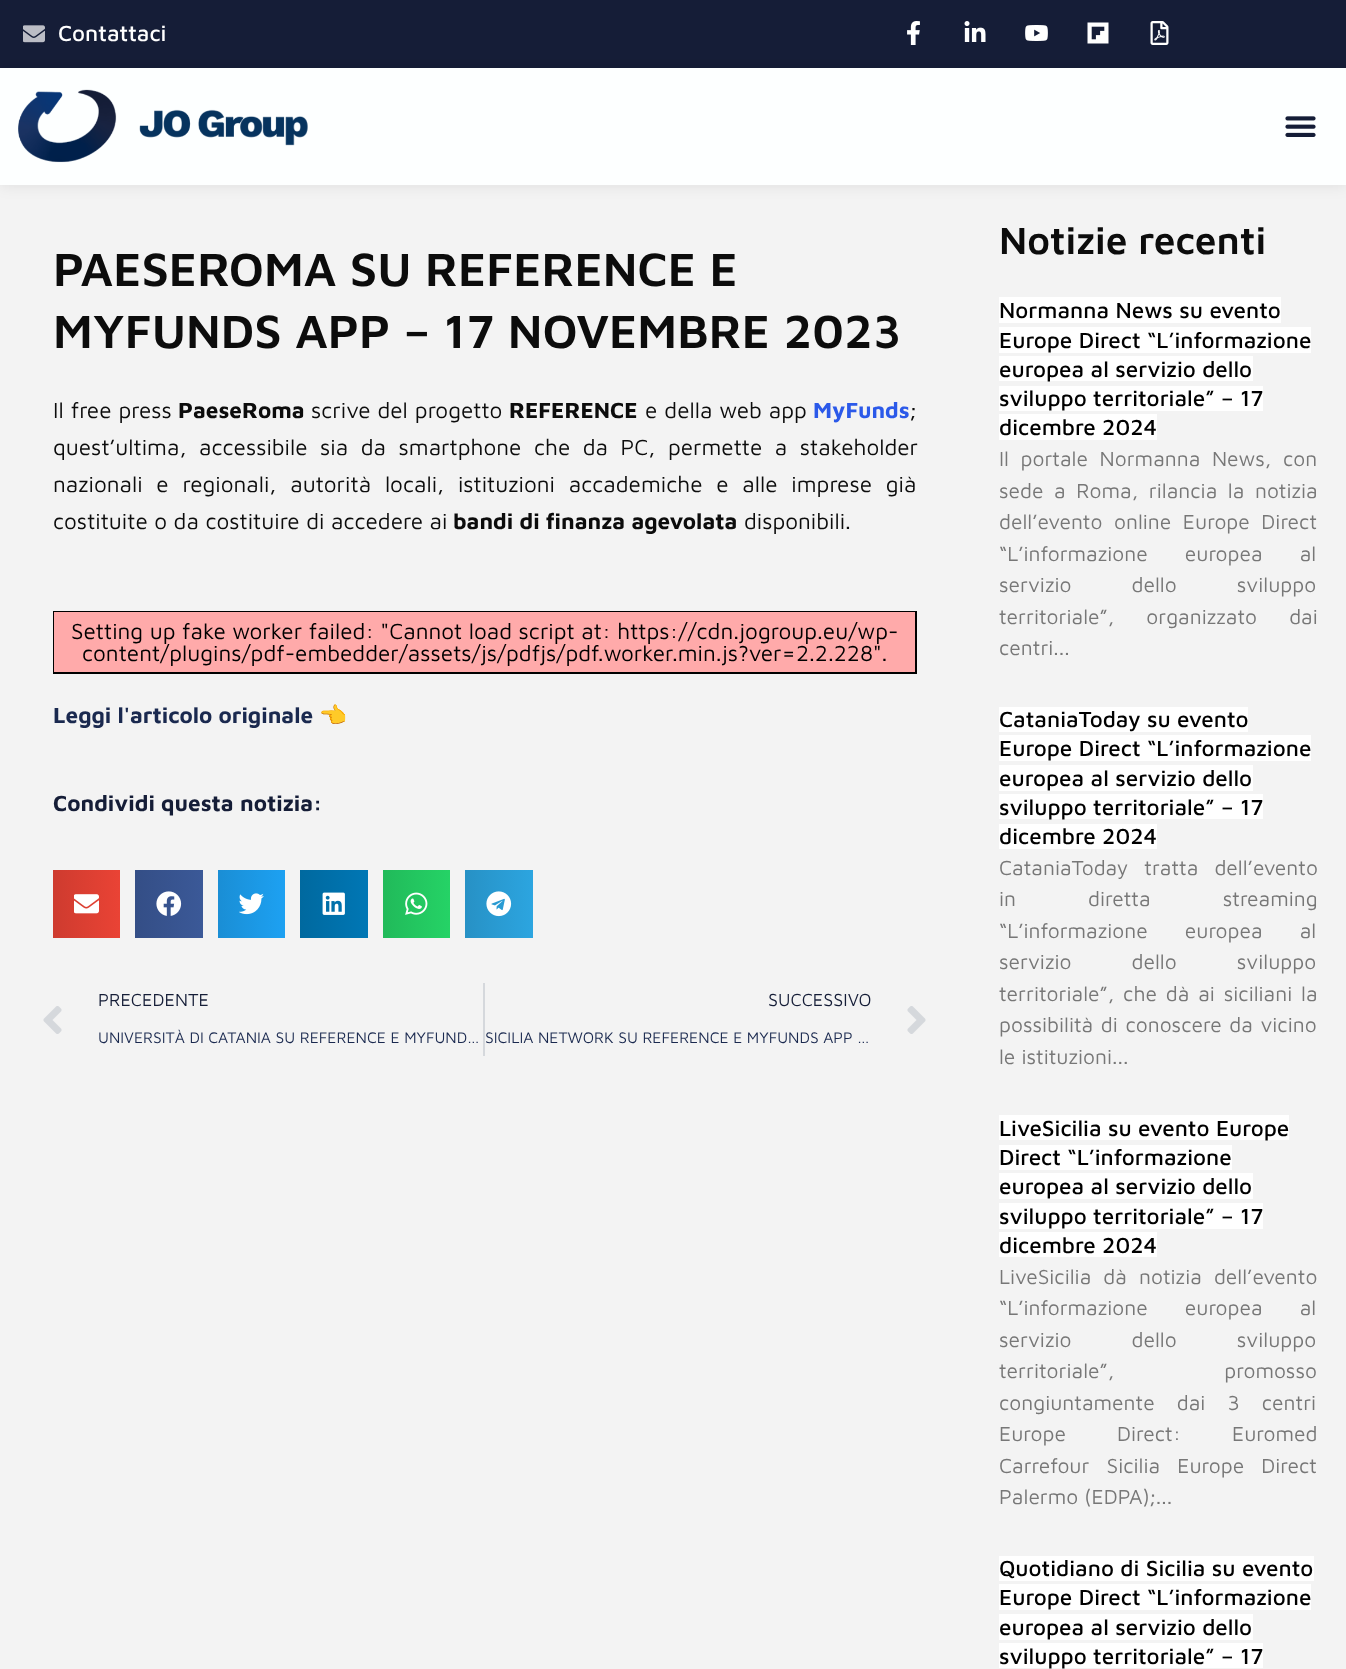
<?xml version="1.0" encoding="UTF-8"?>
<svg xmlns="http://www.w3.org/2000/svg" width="1346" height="1669">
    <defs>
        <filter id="blur1" x="-50%" y="-200%" width="200%" height="500%"><feGaussianBlur stdDeviation="7.5"/></filter>
        <linearGradient id="g1" gradientUnits="userSpaceOnUse" x1="53" y1="904" x2="120" y2="904"><stop offset="0" stop-color="#CE3B2F"/><stop offset="1" stop-color="#EA4335"/></linearGradient>
        <linearGradient id="g2" gradientUnits="userSpaceOnUse" x1="135" y1="904" x2="203" y2="904"><stop offset="0" stop-color="#344E86"/><stop offset="1" stop-color="#3B5998"/></linearGradient>
        <linearGradient id="g3" gradientUnits="userSpaceOnUse" x1="218" y1="904" x2="285" y2="904"><stop offset="0" stop-color="#1A8ED5"/><stop offset="1" stop-color="#1DA1F2"/></linearGradient>
        <linearGradient id="g4" gradientUnits="userSpaceOnUse" x1="300" y1="904" x2="368" y2="904"><stop offset="0" stop-color="#00699F"/><stop offset="1" stop-color="#0077B5"/></linearGradient>
        <linearGradient id="g5" gradientUnits="userSpaceOnUse" x1="383" y1="904" x2="450" y2="904"><stop offset="0" stop-color="#21BA5A"/><stop offset="1" stop-color="#25D366"/></linearGradient>
        <linearGradient id="g6" gradientUnits="userSpaceOnUse" x1="465" y1="904" x2="533" y2="904"><stop offset="0" stop-color="#2791C5"/><stop offset="1" stop-color="#2CA5E0"/></linearGradient>
    </defs>
    <rect width="100%" height="100%" fill="#F3F3F3"/>
    <rect x="0" y="0" width="1346" height="68" fill="#151D37"/>
    <image x="23" y="25" width="22" height="18" href="img_01.png"/>
    <text x="58" y="41" font-family="Maven Pro" font-size="22.5" font-weight="500" fill="#FFFFFF">Contattaci</text>
    <image x="907" y="21" width="13" height="24" href="img_02.png"/>
    <image x="964" y="21" width="22" height="21" href="img_03.png"/>
    <image x="1025" y="25" width="23" height="16" href="img_04.png"/>
    <image x="1087" y="22" width="22" height="22" href="img_05.png"/>
    <image x="1150" y="21" width="19" height="24" href="img_06.png"/>
    <rect x="0" y="68" width="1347" height="117" fill="#000000" fill-opacity="0.09" filter="url(#blur1)"/>
    <rect x="0" y="68" width="1346" height="117" fill="#FDFFFF"/>
    <image x="18" y="89" width="290" height="74" href="img_07.png"/>
    <image x="1285" y="116" width="31" height="21" href="img_08.png"/>
    <text font-family="Maven Pro" font-size="48" font-weight="600" fill="#0C0C0C">
        <tspan x="53" y="286">PAESEROMA SU REFERENCE E</tspan>
        <tspan x="53" y="348">MYFUNDS APP – 17 NOVEMBRE 2023</tspan>
    </text>
    <text x="53" y="418" word-spacing="0.5" font-family="Maven Pro" font-size="22.5" fill="#0C0C0C">Il free press</text>
    <text x="178" y="418" font-family="Maven Pro" font-size="22.5" font-weight="700" fill="#0C0C0C">PaeseRoma</text>
    <text x="311" y="418" word-spacing="0.5" font-family="Maven Pro" font-size="22.5" fill="#0C0C0C">scrive del progetto</text>
    <text x="509" y="418" font-family="Maven Pro" font-size="22.5" font-weight="700" fill="#0C0C0C">REFERENCE</text>
    <text x="645" y="418" word-spacing="0.5" font-family="Maven Pro" font-size="22.5" fill="#0C0C0C">e della web app</text>
    <text x="813" y="418" font-family="Maven Pro" font-size="22.5" font-weight="700" fill="#2B59E9">MyFunds</text>
    <text x="910" y="418" font-family="Maven Pro" font-size="22.5" fill="#0C0C0C">;</text>
    <text font-family="Maven Pro" font-size="22.5" fill="#0C0C0C">
        <tspan x="53" y="455" word-spacing="6">quest’ultima, accessibile sia da smartphone che da PC, permette a stakeholder</tspan>
        <tspan x="53" y="492" word-spacing="7.25">nazionali e regionali, autorità locali, istituzioni accademiche e alle imprese già</tspan>
        <tspan x="53" y="529">costituite o da costituire di accedere ai</tspan>
    </text>
    <text x="453" y="529" font-family="Maven Pro" font-size="22.5" font-weight="700" fill="#0C0C0C">bandi di finanza agevolata</text>
    <text x="744" y="529" font-family="Maven Pro" font-size="22.5" fill="#0C0C0C">disponibili.</text>
    <rect x="54" y="612" width="862" height="61" fill="none" stroke="#000000" stroke-width="2"/>
    <rect x="54" y="612" width="861" height="60" fill="#FFAAAA"/>
    <text x="71" y="639" font-family="Maven Pro" font-size="22.5" fill="#000000">Setting up fake worker failed: "Cannot load script at: https://cdn.jogroup.eu/wp-</text>
    <text x="82" y="661" font-family="Maven Pro" font-size="22.5" fill="#000000">content/plugins/pdf-embedder/assets/js/pdfjs/pdf.worker.min.js?ver=2.2.228".</text>
    <text x="53" y="723" font-family="Maven Pro" font-size="22.5" font-weight="700" fill="#1A294F">Leggi l'articolo originale</text>
    <text x="319" y="723" font-family="Noto Color Emoji" font-size="22.5" font-weight="700" fill="#1A294F">👈</text>
    <text x="53" y="811" font-family="Maven Pro" font-size="22.5" font-weight="700" fill="#151D37">Condividi questa notizia:</text>
    <rect x="53" y="870" width="67" height="68" fill="url(#g1)"/>
    <image x="74" y="894" width="25" height="20" href="img_09.png"/>
    <rect x="135" y="870" width="68" height="68" fill="url(#g2)"/>
    <image x="156" y="891" width="26" height="25" href="img_10.png"/>
    <rect x="218" y="870" width="67" height="68" fill="url(#g3)"/>
    <image x="239" y="893" width="25" height="22" href="img_11.png"/>
    <rect x="300" y="870" width="68" height="68" fill="url(#g4)"/>
    <image x="322" y="892" width="23" height="23" href="img_12.png"/>
    <rect x="383" y="870" width="67" height="68" fill="url(#g5)"/>
    <image x="405" y="892" width="23" height="23" href="img_13.png"/>
    <rect x="465" y="870" width="68" height="68" fill="url(#g6)"/>
    <image x="486" y="891" width="26" height="26" href="img_14.png"/>
    <image x="43" y="1006" width="19" height="28" href="img_15.png"/>
    <text x="98" y="1006" font-family="Maven Pro" font-size="18" fill="#151D37">PRECEDENTE</text>
    <text x="98" y="1043" font-family="Maven Pro" font-size="15.75" fill="#1A294F">UNIVERSITÀ DI CATANIA SU REFERENCE E MYFUND…</text>
    <rect x="483" y="983" width="2" height="73" fill="#D5D8DC"/>
    <text x="768" y="1006" font-family="Maven Pro" font-size="18" fill="#151D37">SUCCESSIVO</text>
    <text x="485" y="1043" font-family="Maven Pro" font-size="15.75" fill="#1A294F">SICILIA NETWORK SU REFERENCE E MYFUNDS APP …</text>
    <image x="907" y="1006" width="19" height="28" href="img_16.png"/>
    <text x="999" y="254" font-family="Maven Pro" font-size="39" font-weight="600" fill="#0C0C0C">Notizie recenti</text>
    <rect x="999" y="297" width="282" height="26" fill="#FFFFFF"/>
    <text x="999" y="318" font-family="Maven Pro" font-size="22.5" font-weight="500" fill="#000000">Normanna News su evento</text>
    <rect x="999" y="327" width="312" height="26" fill="#FFFFFF"/>
    <text x="999" y="348" font-family="Maven Pro" font-size="22.5" font-weight="500" fill="#000000">Europe Direct “L’informazione</text>
    <rect x="999" y="356" width="254" height="25" fill="#FFFFFF"/>
    <text x="999" y="377" font-family="Maven Pro" font-size="22.5" font-weight="500" fill="#000000">europea al servizio dello</text>
    <rect x="999" y="386" width="264" height="25" fill="#FFFFFF"/>
    <text x="999" y="406" font-family="Maven Pro" font-size="22.5" font-weight="500" fill="#000000">sviluppo territoriale” – 17</text>
    <rect x="999" y="414" width="158" height="26" fill="#FFFFFF"/>
    <text x="999" y="435" font-family="Maven Pro" font-size="22.5" font-weight="500" fill="#000000">dicembre 2024</text>
    <text font-family="Maven Pro" font-size="21" fill="#777777">
        <tspan x="999" y="466" word-spacing="5.5">Il portale Normanna News, con</tspan>
        <tspan x="999" y="498" word-spacing="4.5">sede a Roma, rilancia la notizia</tspan>
        <tspan x="999" y="529" word-spacing="5.5">dell’evento online Europe Direct</tspan>
        <tspan x="999" y="561" word-spacing="31">“L’informazione europea al</tspan>
        <tspan x="999" y="592" word-spacing="54">servizio dello sviluppo</tspan>
        <tspan x="999" y="624" word-spacing="26">territoriale”, organizzato dai</tspan>
        <tspan x="999" y="655">centri...</tspan>
    </text>
    <rect x="999" y="707" width="249" height="25" fill="#FFFFFF"/>
    <text x="999" y="727" font-family="Maven Pro" font-size="22.5" font-weight="500" fill="#000000">CataniaToday su evento</text>
    <rect x="999" y="735" width="312" height="26" fill="#FFFFFF"/>
    <text x="999" y="756" font-family="Maven Pro" font-size="22.5" font-weight="500" fill="#000000">Europe Direct “L’informazione</text>
    <rect x="999" y="765" width="254" height="26" fill="#FFFFFF"/>
    <text x="999" y="786" font-family="Maven Pro" font-size="22.5" font-weight="500" fill="#000000">europea al servizio dello</text>
    <rect x="999" y="794" width="264" height="25" fill="#FFFFFF"/>
    <text x="999" y="815" font-family="Maven Pro" font-size="22.5" font-weight="500" fill="#000000">sviluppo territoriale” – 17</text>
    <rect x="999" y="824" width="158" height="25" fill="#FFFFFF"/>
    <text x="999" y="844" font-family="Maven Pro" font-size="22.5" font-weight="500" fill="#000000">dicembre 2024</text>
    <text font-family="Maven Pro" font-size="21" fill="#777777">
        <tspan x="999" y="875" word-spacing="10">CataniaToday tratta dell’evento</tspan>
        <tspan x="999" y="906" word-spacing="66">in diretta streaming</tspan>
        <tspan x="999" y="938" word-spacing="31">“L’informazione europea al</tspan>
        <tspan x="999" y="969" word-spacing="54">servizio dello sviluppo</tspan>
        <tspan x="999" y="1001" word-spacing="2.75">territoriale”, che dà ai siciliani la</tspan>
        <tspan x="999" y="1032" word-spacing="1.5">possibilità di conoscere da vicino</tspan>
        <tspan x="999" y="1064">le istituzioni...</tspan>
    </text>
    <rect x="999" y="1115" width="290" height="25" fill="#FFFFFF"/>
    <text x="999" y="1136" font-family="Maven Pro" font-size="22.5" font-weight="500" fill="#000000">LiveSicilia su evento Europe</text>
    <rect x="999" y="1145" width="233" height="25" fill="#FFFFFF"/>
    <text x="999" y="1165" font-family="Maven Pro" font-size="22.5" font-weight="500" fill="#000000">Direct “L’informazione</text>
    <rect x="999" y="1173" width="254" height="26" fill="#FFFFFF"/>
    <text x="999" y="1194" font-family="Maven Pro" font-size="22.5" font-weight="500" fill="#000000">europea al servizio dello</text>
    <rect x="999" y="1203" width="264" height="26" fill="#FFFFFF"/>
    <text x="999" y="1224" font-family="Maven Pro" font-size="22.5" font-weight="500" fill="#000000">sviluppo territoriale” – 17</text>
    <rect x="999" y="1232" width="158" height="25" fill="#FFFFFF"/>
    <text x="999" y="1253" font-family="Maven Pro" font-size="22.5" font-weight="500" fill="#000000">dicembre 2024</text>
    <text font-family="Maven Pro" font-size="21" fill="#777777">
        <tspan x="999" y="1284" word-spacing="6">LiveSicilia dà notizia dell’evento</tspan>
        <tspan x="999" y="1315" word-spacing="31">“L’informazione europea al</tspan>
        <tspan x="999" y="1347" word-spacing="54">servizio dello sviluppo</tspan>
        <tspan x="999" y="1378" word-spacing="104">territoriale”, promosso</tspan>
        <tspan x="999" y="1410" word-spacing="16">congiuntamente dai 3 centri</tspan>
        <tspan x="999" y="1441" word-spacing="45">Europe Direct: Euromed</tspan>
        <tspan x="999" y="1473" word-spacing="11">Carrefour Sicilia Europe Direct</tspan>
        <tspan x="999" y="1504">Palermo (EDPA);...</tspan>
    </text>
    <rect x="999" y="1556" width="315" height="25" fill="#FFFFFF"/>
    <text x="999" y="1576" font-family="Maven Pro" font-size="22.5" font-weight="500" fill="#000000">Quotidiano di Sicilia su evento</text>
    <rect x="999" y="1584" width="312" height="26" fill="#FFFFFF"/>
    <text x="999" y="1605" font-family="Maven Pro" font-size="22.5" font-weight="500" fill="#000000">Europe Direct “L’informazione</text>
    <rect x="999" y="1614" width="254" height="26" fill="#FFFFFF"/>
    <text x="999" y="1635" font-family="Maven Pro" font-size="22.5" font-weight="500" fill="#000000">europea al servizio dello</text>
    <rect x="999" y="1643" width="264" height="25" fill="#FFFFFF"/>
    <text x="999" y="1664" font-family="Maven Pro" font-size="22.5" font-weight="500" fill="#000000">sviluppo territoriale” – 17</text>
</svg>
